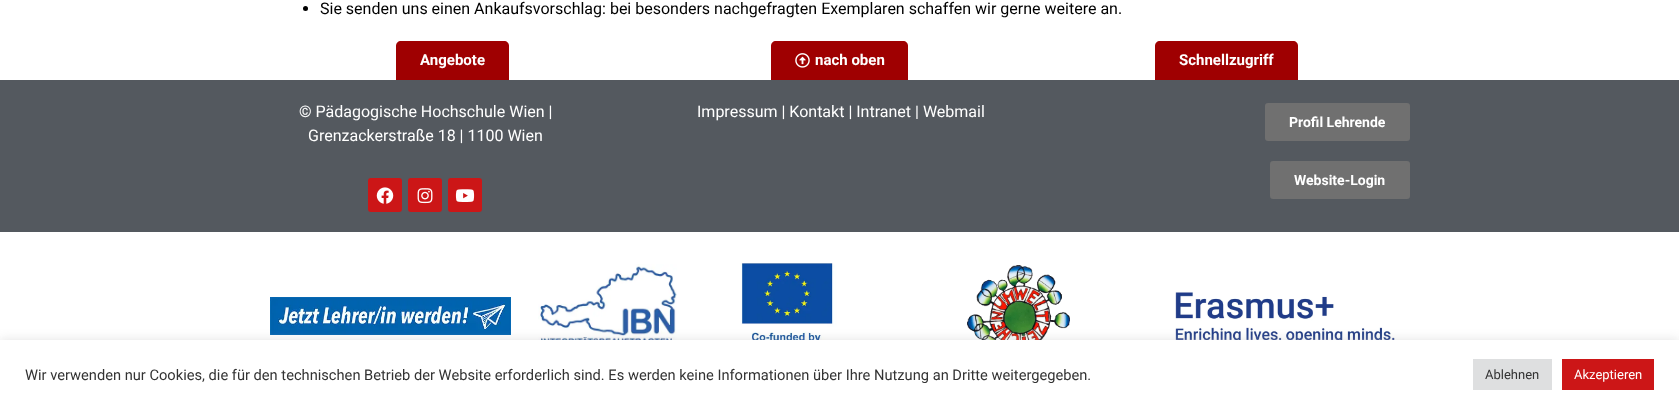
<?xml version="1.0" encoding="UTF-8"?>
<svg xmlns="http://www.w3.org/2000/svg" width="1679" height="409">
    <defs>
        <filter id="blur1" x="-50%" y="-200%" width="200%" height="500%"><feGaussianBlur stdDeviation="5"/></filter>
    </defs>
    <rect width="100%" height="100%" fill="#FFFFFF"/>
    <circle cx="305.5" cy="8.5" r="2.5" fill="#000000"/>
    <text x="320" y="14" font-family="Roboto" font-size="16" fill="#000000">Sie senden uns einen Ankaufsvorschlag: bei besonders nachgefragten Exemplaren schaffen wir gerne weitere an.</text>
    <path d="M 401 41 H 504 C 507 41 509 43 509 46 V 80 H 396 V 46 C 396 43 398 41 401 41 Z" fill="#9F0001"/>
    <text x="420" y="65" font-family="Roboto" font-size="15" font-weight="700" fill="#FFFFFF">Angebote</text>
    <path d="M 776 41 H 903 C 906 41 908 43 908 46 V 80 H 771 V 46 C 771 43 773 41 776 41 Z" fill="#9F0001"/>
    <image x="795" y="53" width="15" height="15" href="img_01.png"/>
    <text x="815" y="65" font-family="Roboto" font-size="15" font-weight="700" fill="#FFFFFF">nach oben</text>
    <path d="M 1160 41 H 1293 C 1296 41 1298 43 1298 46 V 80 H 1155 V 46 C 1155 43 1157 41 1160 41 Z" fill="#9F0001"/>
    <text x="1179" y="65" font-family="Roboto" font-size="15" font-weight="700" fill="#FFFFFF">Schnellzugriff</text>
    <rect x="0" y="80" width="1679" height="152" fill="#54595F"/>
    <text x="299" y="117" font-family="Roboto" font-size="16" fill="#FFFFFF">© Pädagogische Hochschule Wien |</text>
    <text x="308" y="141" font-family="Roboto" font-size="16" fill="#FFFFFF">Grenzackerstraße 18 | 1100 Wien</text>
    <rect x="368" y="178" width="34" height="34" rx="3" fill="#CC1617"/>
    <image x="376" y="187" width="18" height="17" href="img_02.png"/>
    <rect x="408" y="178" width="34" height="34" rx="3" fill="#CC1617"/>
    <image x="417" y="188" width="16" height="16" href="img_03.png"/>
    <rect x="448" y="178" width="34" height="34" rx="3" fill="#CC1617"/>
    <image x="455" y="189" width="20" height="13" href="img_04.png"/>
    <text x="697" y="117" font-family="Roboto" font-size="16" fill="#FFFFFF">Impressum | Kontakt | Intranet | Webmail</text>
    <rect x="1265" y="103" width="145" height="38" rx="3" fill="#707070"/>
    <text x="1289" y="127" font-family="Roboto" font-size="14" font-weight="700" fill="#FFFFFF">Profil Lehrende</text>
    <rect x="1270" y="161" width="140" height="38" rx="3" fill="#707070"/>
    <text x="1294" y="185" font-family="Roboto" font-size="14" font-weight="700" fill="#FFFFFF">Website-Login</text>
    <image x="270" y="297" width="241" height="38" href="img_05.png"/>
    <image x="538" y="264" width="139" height="76" href="img_06.png"/>
    <image x="736" y="263" width="104" height="77" href="img_07.png"/>
    <image x="967" y="265" width="103" height="75" href="img_08.png"/>
    <image x="1175" y="291" width="220" height="49" href="img_09.png"/>
    <rect x="0" y="339" width="1679" height="69" fill="#ACABAB" fill-opacity="0.3" filter="url(#blur1)"/>
    <rect x="0" y="340" width="1679" height="69" fill="#FFFFFF"/>
    <text x="25" y="380" font-family="Roboto" font-size="14.67" fill="#333333">Wir verwenden nur Cookies, die für den technischen Betrieb der Website erforderlich sind. Es werden keine Informationen über Ihre Nutzung an Dritte weitergegeben.</text>
    <rect x="1473" y="359" width="79" height="31" fill="#DEDFE0"/>
    <text x="1485" y="379" font-family="Roboto" font-size="13" fill="#333333">Ablehnen</text>
    <rect x="1562" y="359" width="92" height="31" fill="#CC1617"/>
    <text x="1574" y="379" font-family="Roboto" font-size="13" fill="#FFFFFF">Akzeptieren</text>
</svg>
